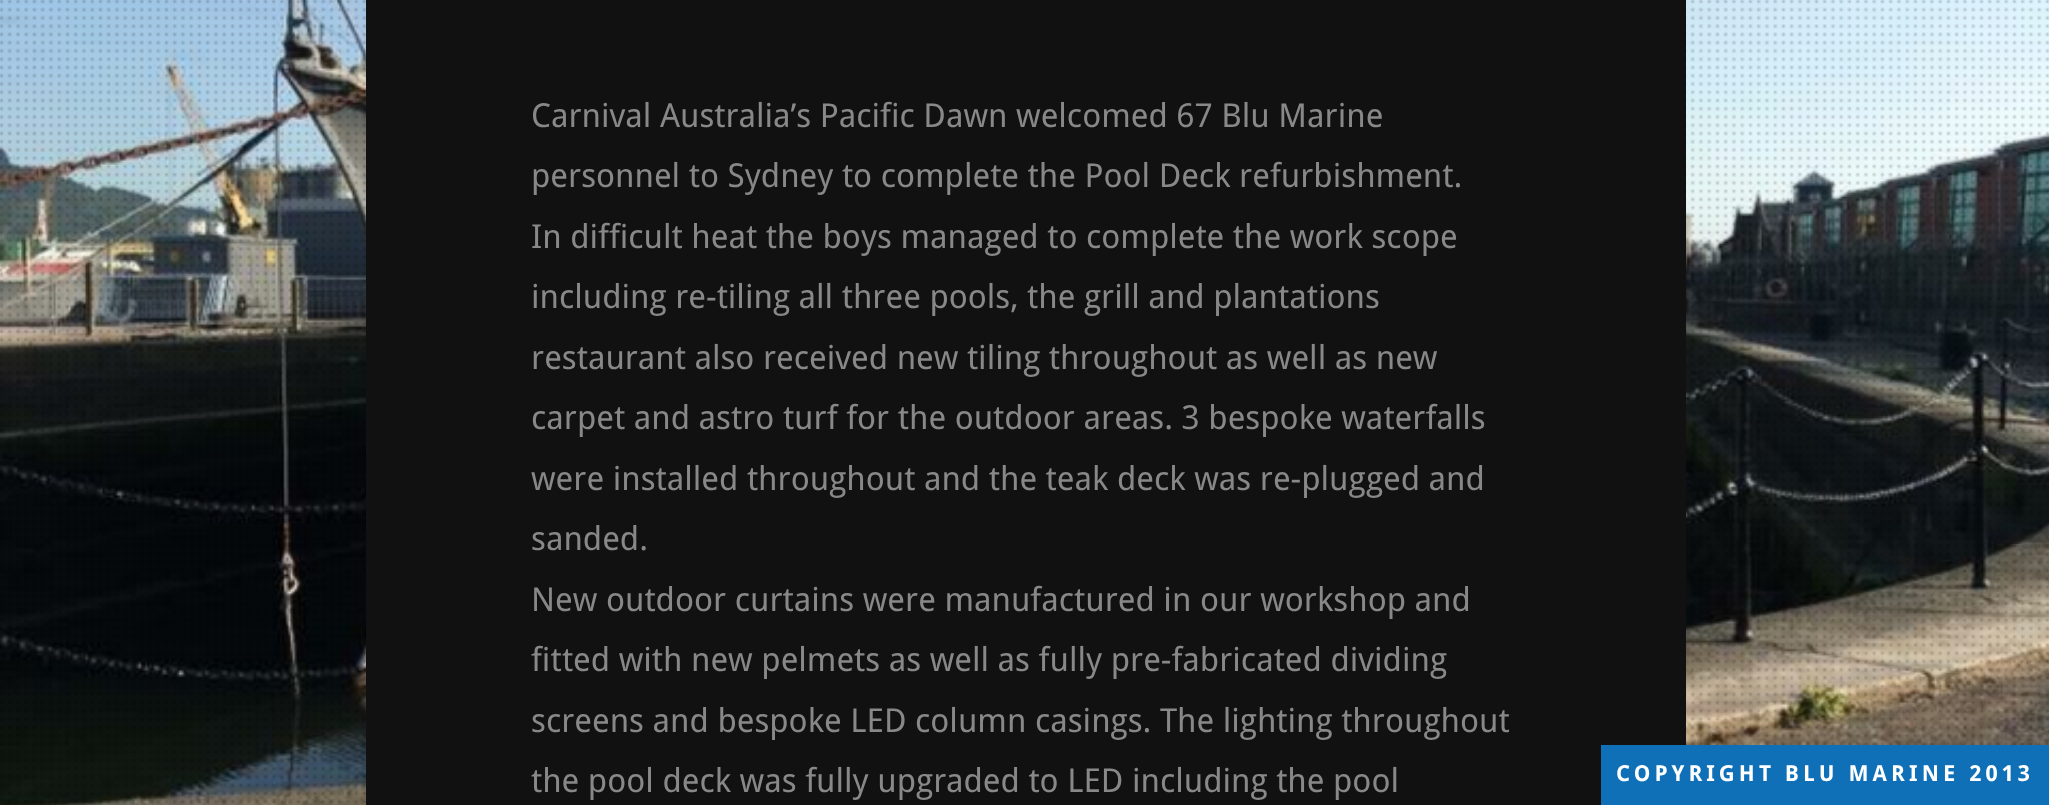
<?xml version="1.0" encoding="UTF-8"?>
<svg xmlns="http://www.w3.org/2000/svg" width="2049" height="805">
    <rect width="100%" height="100%" fill="#FFFFFF"/>
    <image x="0" y="0" width="2049" height="805" href="img_01.png"/>
    <image x="0" y="0" width="2049" height="804" href="img_02.png"/>
    <rect x="366" y="0" width="1320" height="805" fill="#111111"/>
    <text font-family="Droid Sans" font-size="33" fill="#888888">
        <tspan x="531" y="127">Carnival Australia’s Pacific Dawn welcomed 67 Blu Marine</tspan>
        <tspan x="531" y="187">personnel to Sydney to complete the Pool Deck refurbishment.</tspan>
        <tspan x="531" y="248">In difficult heat the boys managed to complete the work scope</tspan>
        <tspan x="531" y="308">including re-tiling all three pools, the grill and plantations</tspan>
        <tspan x="531" y="369">restaurant also received new tiling throughout as well as new</tspan>
        <tspan x="531" y="429">carpet and astro turf for the outdoor areas. 3 bespoke waterfalls</tspan>
        <tspan x="531" y="490">were installed throughout and the teak deck was re-plugged and</tspan>
        <tspan x="531" y="550">sanded.</tspan>
        <tspan x="531" y="611">New outdoor curtains were manufactured in our workshop and</tspan>
        <tspan x="531" y="671">fitted with new pelmets as well as fully pre-fabricated dividing</tspan>
        <tspan x="531" y="732">screens and bespoke LED column casings. The lighting throughout</tspan>
        <tspan x="531" y="792">the pool deck was fully upgraded to LED including the pool</tspan>
    </text>
    <rect x="1601" y="745" width="448" height="60" fill="#0F70B7"/>
    <text x="1616" y="781" font-family="Droid Sans" font-size="22" font-weight="700" letter-spacing="4.1" fill="#FFFFFF">COPYRIGHT BLU MARINE 2013</text>
</svg>
